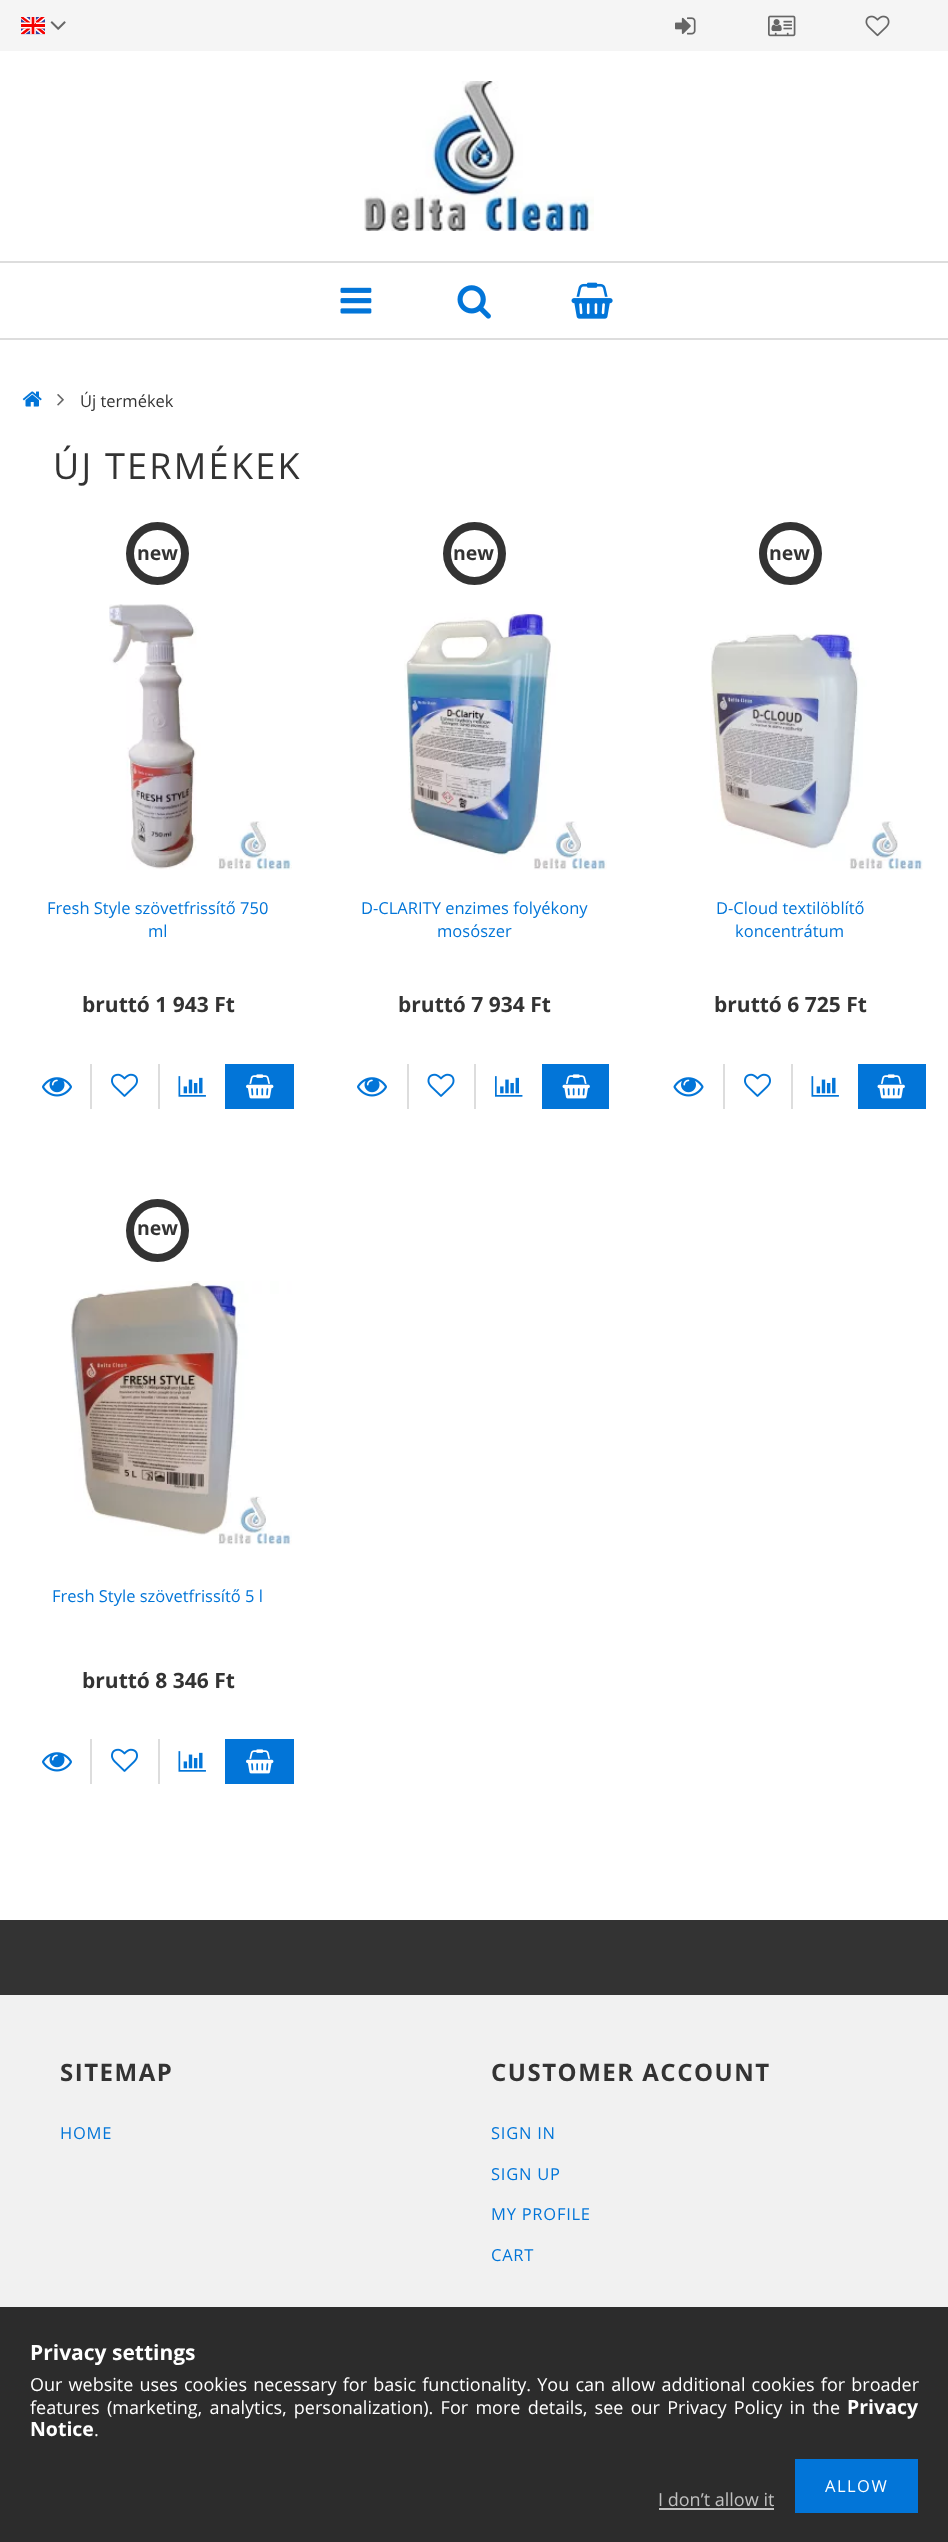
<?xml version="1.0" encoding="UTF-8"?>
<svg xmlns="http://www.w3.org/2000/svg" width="948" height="2542">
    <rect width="100%" height="100%" fill="#FFFFFF"/>
    <rect x="0" y="0" width="948" height="51" fill="#F5F5F5"/>
    <image x="21" y="17" width="24" height="18" href="img_01.png"/>
    <image x="50" y="21" width="16" height="9" href="img_02.png"/>
    <image x="675" y="17" width="21" height="18" href="img_03.png"/>
    <image x="768" y="15" width="28" height="22" href="img_04.png"/>
    <image x="865" y="15" width="25" height="22" href="img_05.png"/>
    <image x="364" y="81" width="230" height="150" href="img_06.png"/>
    <rect x="0" y="261" width="948" height="2" fill="#DDDDDD"/>
    <rect x="0" y="338" width="948" height="2" fill="#DDDDDD"/>
    <image x="340" y="287" width="32" height="27" href="img_07.png"/>
    <image x="457" y="285" width="34" height="34" href="img_08.png"/>
    <image x="571" y="282" width="42" height="37" href="img_09.png"/>
    <image x="22" y="391" width="20" height="16" href="img_10.png"/>
    <image x="57" y="394" width="7" height="12" href="img_11.png"/>
    <text x="80" y="407" font-family="Open Sans" font-size="16.5" fill="#333333">Új termékek</text>
    <text x="53" y="479" font-family="Open Sans" font-size="36" letter-spacing="2.25" fill="#333333">ÚJ TERMÉKEK</text>
    <circle cx="157.5" cy="553.5" r="27.5" fill="none" stroke="#333333" stroke-width="8"/>
    <text x="137" y="560" font-family="Open Sans" font-size="19.5" font-weight="700" fill="#333333">new</text>
    <image x="109" y="604" width="183" height="266" href="img_12.png"/>
    <text x="47" y="914" font-family="Open Sans" font-size="16.5" fill="#0275D8">Fresh Style szövetfrissítő 750</text>
    <text x="148" y="937" font-family="Open Sans" font-size="16.5" fill="#0275D8">ml</text>
    <text x="82" y="1012" font-family="Open Sans" font-size="21" font-weight="700" fill="#333333">bruttó 1 943 Ft</text>
    <image x="42" y="1077" width="30" height="20" href="img_13.png"/>
    <rect x="90" y="1064" width="2" height="45" fill="#DDDDDD"/>
    <image x="111" y="1073" width="27" height="24" href="img_14.png"/>
    <rect x="158" y="1064" width="2" height="45" fill="#DDDDDD"/>
    <image x="178" y="1076" width="28" height="21" href="img_15.png"/>
    <rect x="225" y="1064" width="69" height="45" fill="#0275D8"/>
    <image x="246" y="1074" width="28" height="25" href="img_16.png"/>
    <circle cx="474.5" cy="553.5" r="27.5" fill="none" stroke="#333333" stroke-width="8"/>
    <text x="453" y="560" font-family="Open Sans" font-size="19.5" font-weight="700" fill="#333333">new</text>
    <image x="404" y="611" width="203" height="259" href="img_17.png"/>
    <text x="361" y="914" font-family="Open Sans" font-size="16.5" fill="#0275D8">D-CLARITY enzimes folyékony</text>
    <text x="437" y="937" font-family="Open Sans" font-size="16.5" fill="#0275D8">mosószer</text>
    <text x="398" y="1012" font-family="Open Sans" font-size="21" font-weight="700" fill="#333333">bruttó 7 934 Ft</text>
    <image x="357" y="1077" width="30" height="20" href="img_13.png"/>
    <rect x="407" y="1064" width="2" height="45" fill="#DDDDDD"/>
    <image x="427" y="1073" width="28" height="24" href="img_18.png"/>
    <rect x="474" y="1064" width="2" height="45" fill="#DDDDDD"/>
    <image x="495" y="1076" width="28" height="21" href="img_19.png"/>
    <rect x="542" y="1064" width="67" height="45" fill="#0275D8"/>
    <image x="562" y="1074" width="28" height="25" href="img_20.png"/>
    <circle cx="790.5" cy="553.5" r="27.5" fill="none" stroke="#333333" stroke-width="8"/>
    <text x="769" y="560" font-family="Open Sans" font-size="19.5" font-weight="700" fill="#333333">new</text>
    <image x="710" y="633" width="213" height="237" href="img_21.png"/>
    <text x="716" y="914" font-family="Open Sans" font-size="16.5" fill="#0275D8">D-Cloud textilöblítő</text>
    <text x="735" y="937" font-family="Open Sans" font-size="16.5" fill="#0275D8">koncentrátum</text>
    <text x="714" y="1012" font-family="Open Sans" font-size="21" font-weight="700" fill="#333333">bruttó 6 725 Ft</text>
    <image x="673" y="1077" width="31" height="20" href="img_22.png"/>
    <rect x="723" y="1064" width="2" height="45" fill="#DDDDDD"/>
    <image x="744" y="1073" width="27" height="24" href="img_14.png"/>
    <rect x="791" y="1064" width="2" height="45" fill="#DDDDDD"/>
    <image x="811" y="1076" width="28" height="21" href="img_15.png"/>
    <rect x="858" y="1064" width="68" height="45" fill="#0275D8"/>
    <image x="877" y="1074" width="28" height="25" href="img_20.png"/>
    <circle cx="157.5" cy="1230.5" r="27.5" fill="none" stroke="#333333" stroke-width="8"/>
    <text x="137" y="1235" font-family="Open Sans" font-size="19.5" font-weight="700" fill="#333333">new</text>
    <image x="70" y="1281" width="222" height="264" href="img_23.png"/>
    <text x="52" y="1602" font-family="Open Sans" font-size="16.5" fill="#0275D8">Fresh Style szövetfrissítő 5 l</text>
    <text x="82" y="1688" font-family="Open Sans" font-size="21" font-weight="700" fill="#333333">bruttó 8 346 Ft</text>
    <image x="42" y="1752" width="30" height="20" href="img_13.png"/>
    <rect x="90" y="1739" width="2" height="45" fill="#DDDDDD"/>
    <image x="111" y="1748" width="27" height="24" href="img_14.png"/>
    <rect x="158" y="1739" width="2" height="45" fill="#DDDDDD"/>
    <image x="178" y="1751" width="28" height="21" href="img_15.png"/>
    <rect x="225" y="1739" width="69" height="45" fill="#0275D8"/>
    <image x="246" y="1749" width="28" height="25" href="img_16.png"/>
    <rect x="0" y="1920" width="948" height="75" fill="#333333"/>
    <rect x="0" y="1995" width="948" height="312" fill="#F1F1F1"/>
    <rect x="0" y="2307" width="948" height="235" fill="#2C2C2C"/>
    <text x="60" y="2081" font-family="Open Sans" font-size="24" font-weight="700" letter-spacing="1.5" fill="#333333">SITEMAP</text>
    <text x="60" y="2139" font-family="Open Sans" font-size="16.5" letter-spacing="0.75" fill="#0275D8">HOME</text>
    <text x="491" y="2081" font-family="Open Sans" font-size="24" font-weight="700" letter-spacing="1.5" fill="#333333">CUSTOMER ACCOUNT</text>
    <text x="491" y="2139" font-family="Open Sans" font-size="16.5" letter-spacing="0.75" fill="#0275D8">SIGN IN</text>
    <text x="491" y="2180" font-family="Open Sans" font-size="16.5" letter-spacing="0.75" fill="#0275D8">SIGN UP</text>
    <text x="491" y="2220" font-family="Open Sans" font-size="16.5" letter-spacing="0.75" fill="#0275D8">MY PROFILE</text>
    <text x="491" y="2261" font-family="Open Sans" font-size="16.5" letter-spacing="0.75" fill="#0275D8">CART</text>
    <text x="30" y="2360" font-family="Open Sans" font-size="21" font-weight="700" fill="#FFFFFF">Privacy settings</text>
    <text font-family="Open Sans" font-size="18" fill="#FFFFFF">
        <tspan x="30" y="2391" word-spacing="1.5">Our website uses cookies necessary for basic functionality. You can allow additional cookies for broader</tspan>
        <tspan x="30" y="2414" word-spacing="2.6">features (marketing, analytics, personalization). For more details, see our Privacy Policy in the</tspan>
    </text>
    <text x="847" y="2414" font-family="Open Sans" font-size="19.5" font-weight="700" fill="#FFFFFF">Privacy</text>
    <text x="30" y="2436" font-family="Open Sans" font-size="19.5" font-weight="700" fill="#FFFFFF">Notice</text>
    <text x="94" y="2436" font-family="Open Sans" font-size="18" fill="#FFFFFF">.</text>
    <rect x="795" y="2459" width="123" height="54" fill="#0275D8"/>
    <text x="825" y="2492" font-family="Open Sans" font-size="16.5" letter-spacing="1.5" fill="#FFFFFF">ALLOW</text>
    <text x="658" y="2506" font-family="Open Sans" font-size="18" fill="#C0C0C0">I don’t allow it</text>
    <rect x="659" y="2508" width="115" height="2" fill="#C0C0C0"/>
</svg>
